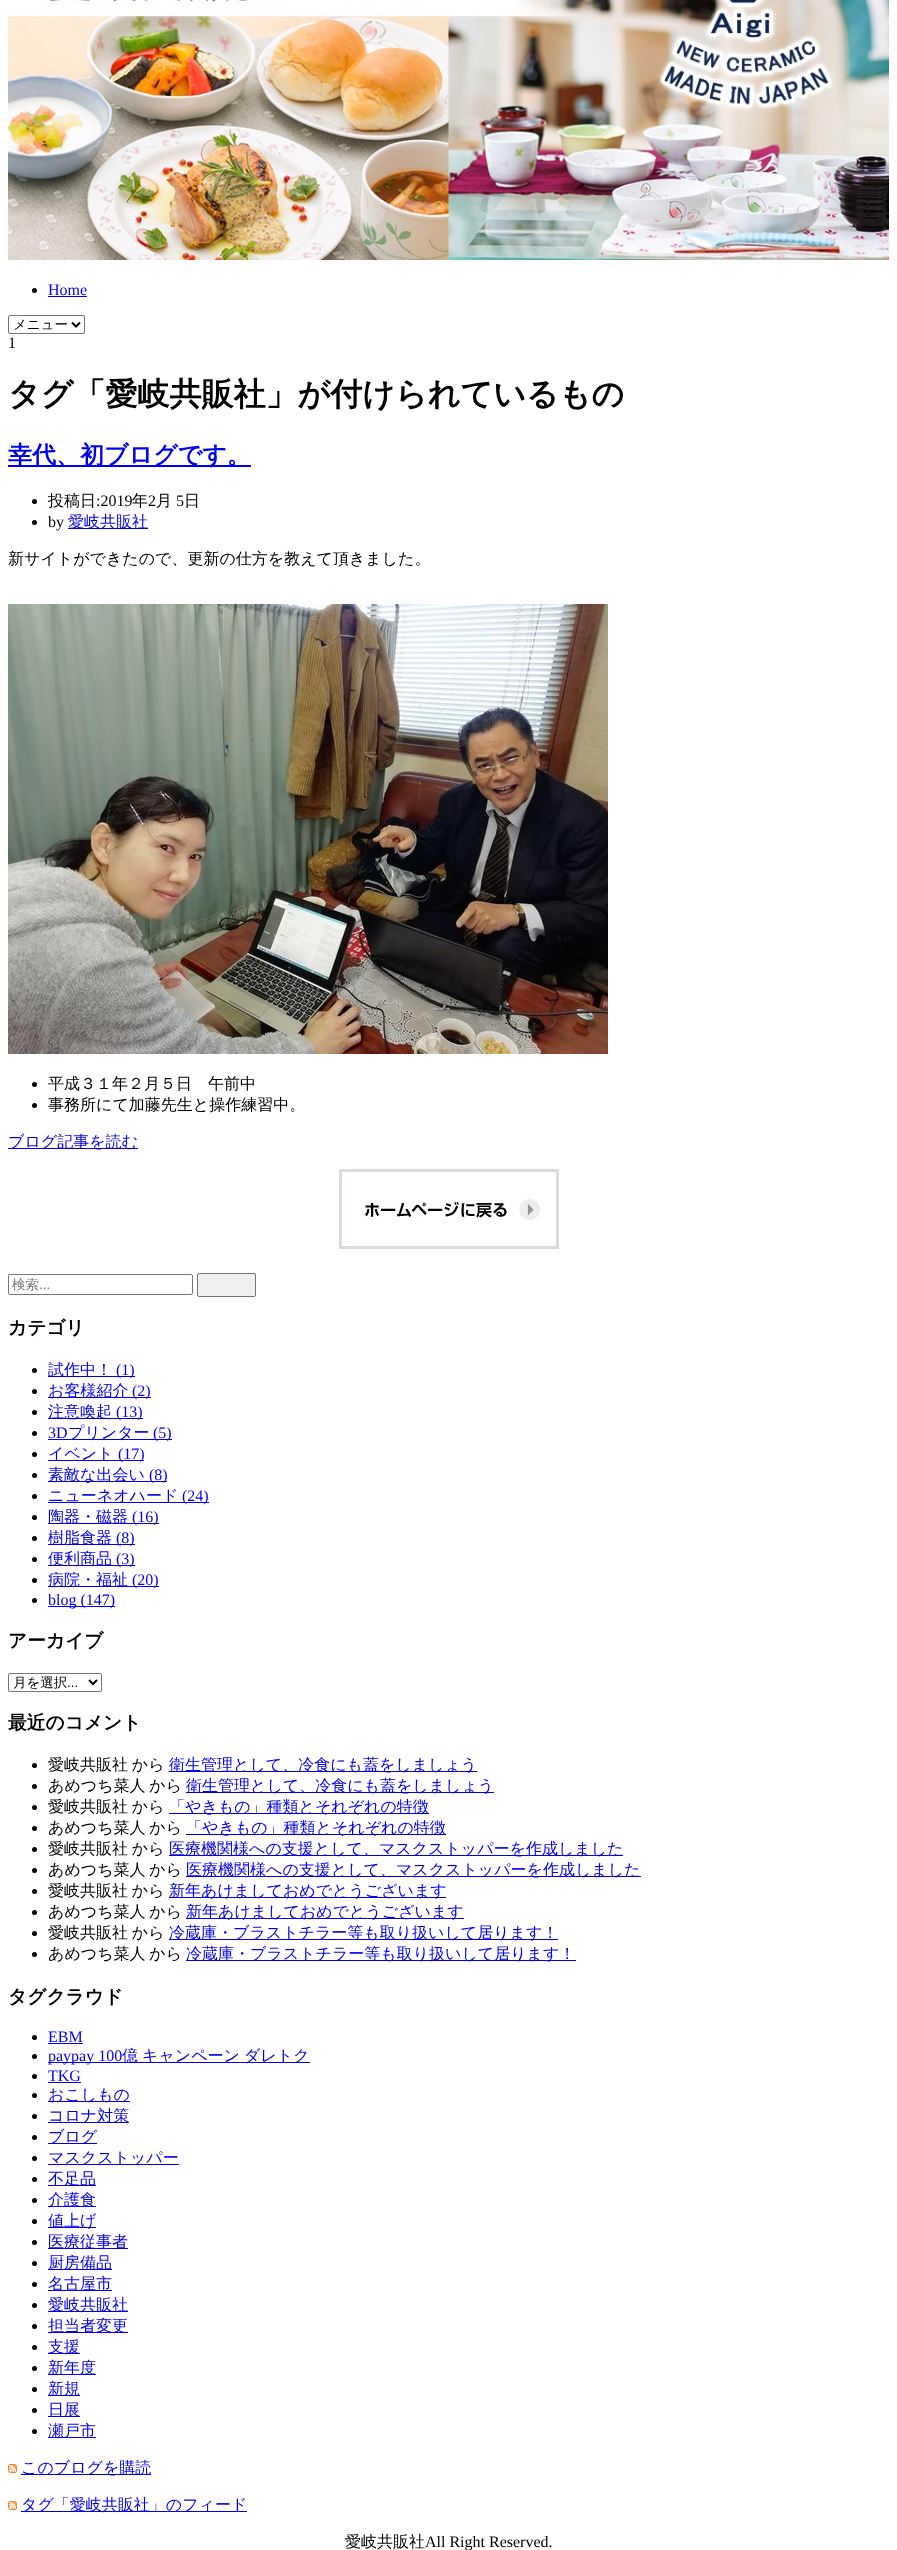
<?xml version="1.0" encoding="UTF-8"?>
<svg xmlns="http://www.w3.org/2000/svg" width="897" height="2550">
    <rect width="100%" height="100%" fill="#FFFFFF"/>
    <image x="8" y="0" width="881" height="260" href="img_01.png"/>
    <circle cx="34.5" cy="290.5" r="2.5" fill="#000000"/>
    <text x="48" y="295" font-family="Liberation Serif" font-size="16" fill="#0000EE">Home</text>
    <rect x="48" y="296" width="39" height="1" fill="#0000EE"/>
    <rect x="8.5" y="315.5" width="76" height="18" rx="1.5" fill="none" stroke="#767676"/>
    <path d="M 72 322.5 L 76 326.5 L 80 322.5" fill="none" stroke="#000000" stroke-width="2"/>
    <text x="13" y="329" font-family="WenQuanYi Zen Hei" font-size="13.5" font-weight="500" fill="#000000">メニュー</text>
    <text x="8" y="348" font-family="Liberation Serif" font-size="16" fill="#000000">1</text>
    <text x="8" y="405" font-family="WenQuanYi Zen Hei" font-size="32" font-weight="700" fill="#000000">タグ「愛岐共販社」が付けられているもの</text>
    <rect x="8" y="465" width="243" height="2" fill="#0000EE"/>
    <text x="8" y="463" font-family="WenQuanYi Zen Hei" font-size="24" font-weight="700" fill="#0000EE">幸代、初ブログです。</text>
    <circle cx="34.5" cy="501.5" r="2.5" fill="#000000"/>
    <text x="48" y="506" font-family="WenQuanYi Zen Hei" font-size="16" font-weight="500" fill="#000000">投稿日</text>
    <text x="96" y="506" font-family="Liberation Serif" font-size="16" fill="#000000">:2019</text>
    <text x="132" y="506" font-family="WenQuanYi Zen Hei" font-size="16" font-weight="500" fill="#000000">年</text>
    <text x="148" y="506" font-family="Liberation Serif" font-size="16" fill="#000000">2</text>
    <text x="156" y="506" font-family="WenQuanYi Zen Hei" font-size="16" font-weight="500" fill="#000000">月</text>
    <text x="176" y="506" font-family="Liberation Serif" font-size="16" fill="#000000">5</text>
    <text x="184" y="506" font-family="WenQuanYi Zen Hei" font-size="16" font-weight="500" fill="#000000">日</text>
    <circle cx="34.5" cy="522.5" r="2.5" fill="#000000"/>
    <text x="48" y="527" font-family="Liberation Serif" font-size="16" fill="#000000">by</text>
    <rect x="68" y="528" width="80" height="1" fill="#0000EE"/>
    <text x="68" y="527" font-family="WenQuanYi Zen Hei" font-size="16" font-weight="500" fill="#0000EE">愛岐共販社</text>
    <text x="8" y="564" font-family="WenQuanYi Zen Hei" font-size="16" font-weight="500" fill="#000000">新サイトができたので、更新の仕方を教えて頂きました。</text>
    <image x="8" y="604" width="600" height="450" href="img_02.png"/>
    <circle cx="34.5" cy="1084.5" r="2.5" fill="#000000"/>
    <text x="48" y="1089" font-family="WenQuanYi Zen Hei" font-size="16" font-weight="500" fill="#000000">平成３１年２月５日　午前中</text>
    <circle cx="34.5" cy="1105.5" r="2.5" fill="#000000"/>
    <text x="48" y="1110" font-family="WenQuanYi Zen Hei" font-size="16" font-weight="500" fill="#000000">事務所にて加藤先生と操作練習中。</text>
    <rect x="8" y="1148" width="130" height="1" fill="#0000EE"/>
    <text x="8" y="1147" font-family="WenQuanYi Zen Hei" font-size="16" font-weight="500" fill="#0000EE">ブログ記事を読む</text>
    <image x="339" y="1169" width="220" height="80" href="img_03.png"/>
    <rect x="8.5" y="1274.5" width="184" height="20" rx="1.5" fill="none" stroke="#767676"/>
    <text x="12" y="1289" font-family="WenQuanYi Zen Hei" font-size="13.5" font-weight="500" fill="#757575">検索</text>
    <text x="39" y="1289" font-family="Liberation Sans" font-size="13.5" fill="#757575">...</text>
    <rect x="197.5" y="1273.5" width="58" height="23" rx="1.5" fill="#EFEFEF" stroke="#767676"/>
    <text x="8" y="1334" font-family="WenQuanYi Zen Hei" font-size="18.75" font-weight="700" fill="#000000">カテゴリ</text>
    <circle cx="34.5" cy="1370.5" r="2.5" fill="#000000"/>
    <rect x="48" y="1376" width="87" height="1" fill="#0000EE"/>
    <text x="48" y="1375" font-family="WenQuanYi Zen Hei" font-size="16" font-weight="500" fill="#0000EE">試作中！</text>
    <text x="116" y="1375" font-family="Liberation Serif" font-size="16" fill="#0000EE">(1)</text>
    <circle cx="34.5" cy="1391.5" r="2.5" fill="#000000"/>
    <rect x="48" y="1397" width="103" height="1" fill="#0000EE"/>
    <text x="48" y="1396" font-family="WenQuanYi Zen Hei" font-size="16" font-weight="500" fill="#0000EE">お客様紹介</text>
    <text x="132" y="1396" font-family="Liberation Serif" font-size="16" fill="#0000EE">(2)</text>
    <circle cx="34.5" cy="1412.5" r="2.5" fill="#000000"/>
    <rect x="48" y="1418" width="95" height="1" fill="#0000EE"/>
    <text x="48" y="1417" font-family="WenQuanYi Zen Hei" font-size="16" font-weight="500" fill="#0000EE">注意喚起</text>
    <text x="116" y="1417" font-family="Liberation Serif" font-size="16" fill="#0000EE">(13)</text>
    <circle cx="34.5" cy="1433.5" r="2.5" fill="#000000"/>
    <text x="48" y="1438" font-family="Liberation Serif" font-size="16" fill="#0000EE">3D</text>
    <rect x="48" y="1439" width="124" height="1" fill="#0000EE"/>
    <text x="68" y="1438" font-family="WenQuanYi Zen Hei" font-size="16" font-weight="500" fill="#0000EE">プリンター</text>
    <text x="153" y="1438" font-family="Liberation Serif" font-size="16" fill="#0000EE">(5)</text>
    <circle cx="34.5" cy="1454.5" r="2.5" fill="#000000"/>
    <rect x="48" y="1460" width="96" height="1" fill="#0000EE"/>
    <text x="48" y="1459" font-family="WenQuanYi Zen Hei" font-size="16" font-weight="500" fill="#0000EE">イベント</text>
    <text x="118" y="1459" font-family="Liberation Serif" font-size="16" fill="#0000EE">(17)</text>
    <circle cx="34.5" cy="1475.5" r="2.5" fill="#000000"/>
    <rect x="48" y="1481" width="119" height="1" fill="#0000EE"/>
    <text x="48" y="1480" font-family="WenQuanYi Zen Hei" font-size="16" font-weight="500" fill="#0000EE">素敵な出会い</text>
    <text x="149" y="1480" font-family="Liberation Serif" font-size="16" fill="#0000EE">(8)</text>
    <circle cx="34.5" cy="1496.5" r="2.5" fill="#000000"/>
    <rect x="48" y="1502" width="161" height="1" fill="#0000EE"/>
    <text x="48" y="1501" font-family="WenQuanYi Zen Hei" font-size="16" font-weight="500" fill="#0000EE">ニューネオハード</text>
    <text x="182" y="1501" font-family="Liberation Serif" font-size="16" fill="#0000EE">(24)</text>
    <circle cx="34.5" cy="1517.5" r="2.5" fill="#000000"/>
    <rect x="48" y="1523" width="111" height="1" fill="#0000EE"/>
    <text x="48" y="1522" font-family="WenQuanYi Zen Hei" font-size="16" font-weight="500" fill="#0000EE">陶器・磁器</text>
    <text x="132" y="1522" font-family="Liberation Serif" font-size="16" fill="#0000EE">(16)</text>
    <circle cx="34.5" cy="1538.5" r="2.5" fill="#000000"/>
    <rect x="48" y="1544" width="87" height="1" fill="#0000EE"/>
    <text x="48" y="1543" font-family="WenQuanYi Zen Hei" font-size="16" font-weight="500" fill="#0000EE">樹脂食器</text>
    <text x="116" y="1543" font-family="Liberation Serif" font-size="16" fill="#0000EE">(8)</text>
    <circle cx="34.5" cy="1559.5" r="2.5" fill="#000000"/>
    <rect x="48" y="1565" width="87" height="1" fill="#0000EE"/>
    <text x="48" y="1564" font-family="WenQuanYi Zen Hei" font-size="16" font-weight="500" fill="#0000EE">便利商品</text>
    <text x="116" y="1564" font-family="Liberation Serif" font-size="16" fill="#0000EE">(3)</text>
    <circle cx="34.5" cy="1580.5" r="2.5" fill="#000000"/>
    <rect x="48" y="1586" width="111" height="1" fill="#0000EE"/>
    <text x="48" y="1585" font-family="WenQuanYi Zen Hei" font-size="16" font-weight="500" fill="#0000EE">病院・福祉</text>
    <text x="132" y="1585" font-family="Liberation Serif" font-size="16" fill="#0000EE">(20)</text>
    <circle cx="34.5" cy="1600.5" r="2.5" fill="#000000"/>
    <rect x="48" y="1606" width="67" height="1" fill="#0000EE"/>
    <text x="48" y="1605" font-family="Liberation Serif" font-size="16" fill="#0000EE">blog (147)</text>
    <text x="8" y="1647" font-family="WenQuanYi Zen Hei" font-size="18.75" font-weight="700" fill="#000000">アーカイブ</text>
    <rect x="8.5" y="1673.5" width="93" height="18" rx="1.5" fill="none" stroke="#767676"/>
    <path d="M 89 1680 L 93 1684 L 97 1680" fill="none" stroke="#000000" stroke-width="2"/>
    <text x="13" y="1687" font-family="WenQuanYi Zen Hei" font-size="13.5" font-weight="500" fill="#000000">月を選択</text>
    <text x="67" y="1687" font-family="Liberation Sans" font-size="13.5" fill="#000000">...</text>
    <text x="8" y="1729" font-family="WenQuanYi Zen Hei" font-size="18.75" font-weight="700" fill="#000000">最近のコメント</text>
    <circle cx="34.5" cy="1765.5" r="2.5" fill="#000000"/>
    <text x="48" y="1770" word-spacing="-1" font-family="WenQuanYi Zen Hei" font-size="16" font-weight="500" fill="#000000">愛岐共販社 から</text>
    <rect x="169" y="1771" width="308" height="1" fill="#0000EE"/>
    <text x="169" y="1770" font-family="WenQuanYi Zen Hei" font-size="16" font-weight="500" fill="#0000EE">衛生管理として、冷食にも蓋をしましょう</text>
    <circle cx="34.5" cy="1786.5" r="2.5" fill="#000000"/>
    <text x="48" y="1791" word-spacing="-1" font-family="WenQuanYi Zen Hei" font-size="16" font-weight="500" fill="#000000">あめつち菜人 から</text>
    <rect x="186" y="1792" width="308" height="1" fill="#0000EE"/>
    <text x="186" y="1791" font-family="WenQuanYi Zen Hei" font-size="16" font-weight="500" fill="#0000EE">衛生管理として、冷食にも蓋をしましょう</text>
    <circle cx="34.5" cy="1807.5" r="2.5" fill="#000000"/>
    <text x="48" y="1812" word-spacing="-1" font-family="WenQuanYi Zen Hei" font-size="16" font-weight="500" fill="#000000">愛岐共販社 から</text>
    <rect x="169" y="1813" width="260" height="1" fill="#0000EE"/>
    <text x="169" y="1812" font-family="WenQuanYi Zen Hei" font-size="16" font-weight="500" fill="#0000EE">「やきもの」種類とそれぞれの特徴</text>
    <circle cx="34.5" cy="1828.5" r="2.5" fill="#000000"/>
    <text x="48" y="1833" word-spacing="-1" font-family="WenQuanYi Zen Hei" font-size="16" font-weight="500" fill="#000000">あめつち菜人 から</text>
    <rect x="186" y="1834" width="260" height="1" fill="#0000EE"/>
    <text x="186" y="1833" font-family="WenQuanYi Zen Hei" font-size="16" font-weight="500" fill="#0000EE">「やきもの」種類とそれぞれの特徴</text>
    <circle cx="34.5" cy="1849.5" r="2.5" fill="#000000"/>
    <text x="48" y="1854" word-spacing="-1" font-family="WenQuanYi Zen Hei" font-size="16" font-weight="500" fill="#000000">愛岐共販社 から</text>
    <rect x="169" y="1855" width="454" height="1" fill="#0000EE"/>
    <text x="169" y="1854" font-family="WenQuanYi Zen Hei" font-size="16" font-weight="500" fill="#0000EE">医療機関様への支援として、マスクストッパーを作成しました</text>
    <circle cx="34.5" cy="1870.5" r="2.5" fill="#000000"/>
    <text x="48" y="1875" word-spacing="-1" font-family="WenQuanYi Zen Hei" font-size="16" font-weight="500" fill="#000000">あめつち菜人 から</text>
    <rect x="186" y="1876" width="455" height="1" fill="#0000EE"/>
    <text x="186" y="1875" font-family="WenQuanYi Zen Hei" font-size="16" font-weight="500" fill="#0000EE">医療機関様への支援として、マスクストッパーを作成しました</text>
    <circle cx="34.5" cy="1891.5" r="2.5" fill="#000000"/>
    <text x="48" y="1896" word-spacing="-1" font-family="WenQuanYi Zen Hei" font-size="16" font-weight="500" fill="#000000">愛岐共販社 から</text>
    <rect x="169" y="1897" width="277" height="1" fill="#0000EE"/>
    <text x="169" y="1896" font-family="WenQuanYi Zen Hei" font-size="16" font-weight="500" fill="#0000EE">新年あけましておめでとうございます</text>
    <circle cx="34.5" cy="1912.5" r="2.5" fill="#000000"/>
    <text x="48" y="1917" word-spacing="-1" font-family="WenQuanYi Zen Hei" font-size="16" font-weight="500" fill="#000000">あめつち菜人 から</text>
    <rect x="186" y="1918" width="278" height="1" fill="#0000EE"/>
    <text x="186" y="1917" font-family="WenQuanYi Zen Hei" font-size="16" font-weight="500" fill="#0000EE">新年あけましておめでとうございます</text>
    <circle cx="34.5" cy="1933.5" r="2.5" fill="#000000"/>
    <text x="48" y="1938" word-spacing="-1" font-family="WenQuanYi Zen Hei" font-size="16" font-weight="500" fill="#000000">愛岐共販社 から</text>
    <rect x="169" y="1939" width="389" height="1" fill="#0000EE"/>
    <text x="169" y="1938" font-family="WenQuanYi Zen Hei" font-size="16" font-weight="500" fill="#0000EE">冷蔵庫・ブラストチラー等も取り扱いして居ります！</text>
    <circle cx="34.5" cy="1954.5" r="2.5" fill="#000000"/>
    <text x="48" y="1959" word-spacing="-1" font-family="WenQuanYi Zen Hei" font-size="16" font-weight="500" fill="#000000">あめつち菜人 から</text>
    <rect x="186" y="1960" width="390" height="1" fill="#0000EE"/>
    <text x="186" y="1959" font-family="WenQuanYi Zen Hei" font-size="16" font-weight="500" fill="#0000EE">冷蔵庫・ブラストチラー等も取り扱いして居ります！</text>
    <text x="8" y="2003" font-family="WenQuanYi Zen Hei" font-size="18.75" font-weight="700" fill="#000000">タグクラウド</text>
    <circle cx="34.5" cy="2037.5" r="2.5" fill="#000000"/>
    <text x="48" y="2042" font-family="Liberation Serif" font-size="16" fill="#0000EE">EBM</text>
    <rect x="48" y="2043" width="35" height="1" fill="#0000EE"/>
    <circle cx="34.5" cy="2056.5" r="2.5" fill="#000000"/>
    <rect x="48" y="2062" width="262" height="1" fill="#0000EE"/>
    <text x="48" y="2061" font-family="Liberation Serif" font-size="16" fill="#0000EE">paypay 100</text>
    <text x="122" y="2061" font-family="WenQuanYi Zen Hei" font-size="16" font-weight="500" fill="#0000EE">億</text>
    <text x="142" y="2061" font-family="WenQuanYi Zen Hei" font-size="16" font-weight="500" fill="#0000EE">キャンペーン</text>
    <text x="244" y="2061" font-family="WenQuanYi Zen Hei" font-size="16" font-weight="500" fill="#0000EE">ダレトク</text>
    <circle cx="34.5" cy="2076.5" r="2.5" fill="#000000"/>
    <text x="48" y="2081" font-family="Liberation Serif" font-size="16" fill="#0000EE">TKG</text>
    <rect x="48" y="2082" width="33" height="1" fill="#0000EE"/>
    <circle cx="34.5" cy="2095.5" r="2.5" fill="#000000"/>
    <rect x="48" y="2101" width="82" height="1" fill="#0000EE"/>
    <text x="48" y="2100" font-family="WenQuanYi Zen Hei" font-size="16" font-weight="500" fill="#0000EE">おこしもの</text>
    <circle cx="34.5" cy="2116.5" r="2.5" fill="#000000"/>
    <rect x="48" y="2122" width="81" height="1" fill="#0000EE"/>
    <text x="48" y="2121" font-family="WenQuanYi Zen Hei" font-size="16" font-weight="500" fill="#0000EE">コロナ対策</text>
    <circle cx="34.5" cy="2137.5" r="2.5" fill="#000000"/>
    <rect x="48" y="2143" width="49" height="1" fill="#0000EE"/>
    <text x="48" y="2142" font-family="WenQuanYi Zen Hei" font-size="16" font-weight="500" fill="#0000EE">ブログ</text>
    <circle cx="34.5" cy="2158.5" r="2.5" fill="#000000"/>
    <rect x="48" y="2164" width="131" height="1" fill="#0000EE"/>
    <text x="48" y="2163" font-family="WenQuanYi Zen Hei" font-size="16" font-weight="500" fill="#0000EE">マスクストッパー</text>
    <circle cx="34.5" cy="2179.5" r="2.5" fill="#000000"/>
    <rect x="48" y="2185" width="48" height="1" fill="#0000EE"/>
    <text x="48" y="2184" font-family="WenQuanYi Zen Hei" font-size="16" font-weight="500" fill="#0000EE">不足品</text>
    <circle cx="34.5" cy="2200.5" r="2.5" fill="#000000"/>
    <rect x="48" y="2206" width="48" height="1" fill="#0000EE"/>
    <text x="48" y="2205" font-family="WenQuanYi Zen Hei" font-size="16" font-weight="500" fill="#0000EE">介護食</text>
    <circle cx="34.5" cy="2221.5" r="2.5" fill="#000000"/>
    <rect x="48" y="2227" width="48" height="1" fill="#0000EE"/>
    <text x="48" y="2226" font-family="WenQuanYi Zen Hei" font-size="16" font-weight="500" fill="#0000EE">値上げ</text>
    <circle cx="34.5" cy="2242.5" r="2.5" fill="#000000"/>
    <rect x="48" y="2248" width="80" height="1" fill="#0000EE"/>
    <text x="48" y="2247" font-family="WenQuanYi Zen Hei" font-size="16" font-weight="500" fill="#0000EE">医療従事者</text>
    <circle cx="34.5" cy="2263.5" r="2.5" fill="#000000"/>
    <rect x="48" y="2269" width="64" height="1" fill="#0000EE"/>
    <text x="48" y="2268" font-family="WenQuanYi Zen Hei" font-size="16" font-weight="500" fill="#0000EE">厨房備品</text>
    <circle cx="34.5" cy="2284.5" r="2.5" fill="#000000"/>
    <rect x="48" y="2290" width="64" height="1" fill="#0000EE"/>
    <text x="48" y="2289" font-family="WenQuanYi Zen Hei" font-size="16" font-weight="500" fill="#0000EE">名古屋市</text>
    <circle cx="34.5" cy="2305.5" r="2.5" fill="#000000"/>
    <rect x="48" y="2311" width="80" height="1" fill="#0000EE"/>
    <text x="48" y="2310" font-family="WenQuanYi Zen Hei" font-size="16" font-weight="500" fill="#0000EE">愛岐共販社</text>
    <circle cx="34.5" cy="2326.5" r="2.5" fill="#000000"/>
    <rect x="48" y="2332" width="80" height="1" fill="#0000EE"/>
    <text x="48" y="2331" font-family="WenQuanYi Zen Hei" font-size="16" font-weight="500" fill="#0000EE">担当者変更</text>
    <circle cx="34.5" cy="2347.5" r="2.5" fill="#000000"/>
    <rect x="48" y="2353" width="32" height="1" fill="#0000EE"/>
    <text x="48" y="2352" font-family="WenQuanYi Zen Hei" font-size="16" font-weight="500" fill="#0000EE">支援</text>
    <circle cx="34.5" cy="2368.5" r="2.5" fill="#000000"/>
    <rect x="48" y="2374" width="48" height="1" fill="#0000EE"/>
    <text x="48" y="2373" font-family="WenQuanYi Zen Hei" font-size="16" font-weight="500" fill="#0000EE">新年度</text>
    <circle cx="34.5" cy="2389.5" r="2.5" fill="#000000"/>
    <rect x="48" y="2395" width="32" height="1" fill="#0000EE"/>
    <text x="48" y="2394" font-family="WenQuanYi Zen Hei" font-size="16" font-weight="500" fill="#0000EE">新規</text>
    <circle cx="34.5" cy="2410.5" r="2.5" fill="#000000"/>
    <rect x="48" y="2416" width="32" height="1" fill="#0000EE"/>
    <text x="48" y="2415" font-family="WenQuanYi Zen Hei" font-size="16" font-weight="500" fill="#0000EE">日展</text>
    <circle cx="34.5" cy="2431.5" r="2.5" fill="#000000"/>
    <rect x="48" y="2437" width="48" height="1" fill="#0000EE"/>
    <text x="48" y="2436" font-family="WenQuanYi Zen Hei" font-size="16" font-weight="500" fill="#0000EE">瀬戸市</text>
    <image x="8" y="2464" width="9" height="9" href="img_04.png"/>
    <rect x="21" y="2474" width="130" height="1" fill="#0000EE"/>
    <text x="21" y="2473" font-family="WenQuanYi Zen Hei" font-size="16" font-weight="500" fill="#0000EE">このブログを購読</text>
    <image x="8" y="2501" width="9" height="9" href="img_04.png"/>
    <rect x="21" y="2511" width="226" height="1" fill="#0000EE"/>
    <text x="21" y="2510" font-family="WenQuanYi Zen Hei" font-size="16" font-weight="500" fill="#0000EE">タグ「愛岐共販社」のフィード</text>
    <text x="345" y="2547" font-family="WenQuanYi Zen Hei" font-size="16" font-weight="500" fill="#000000">愛岐共販社</text>
    <text x="425" y="2547" font-family="Liberation Serif" font-size="16" fill="#000000">All Right Reserved.</text>
</svg>
